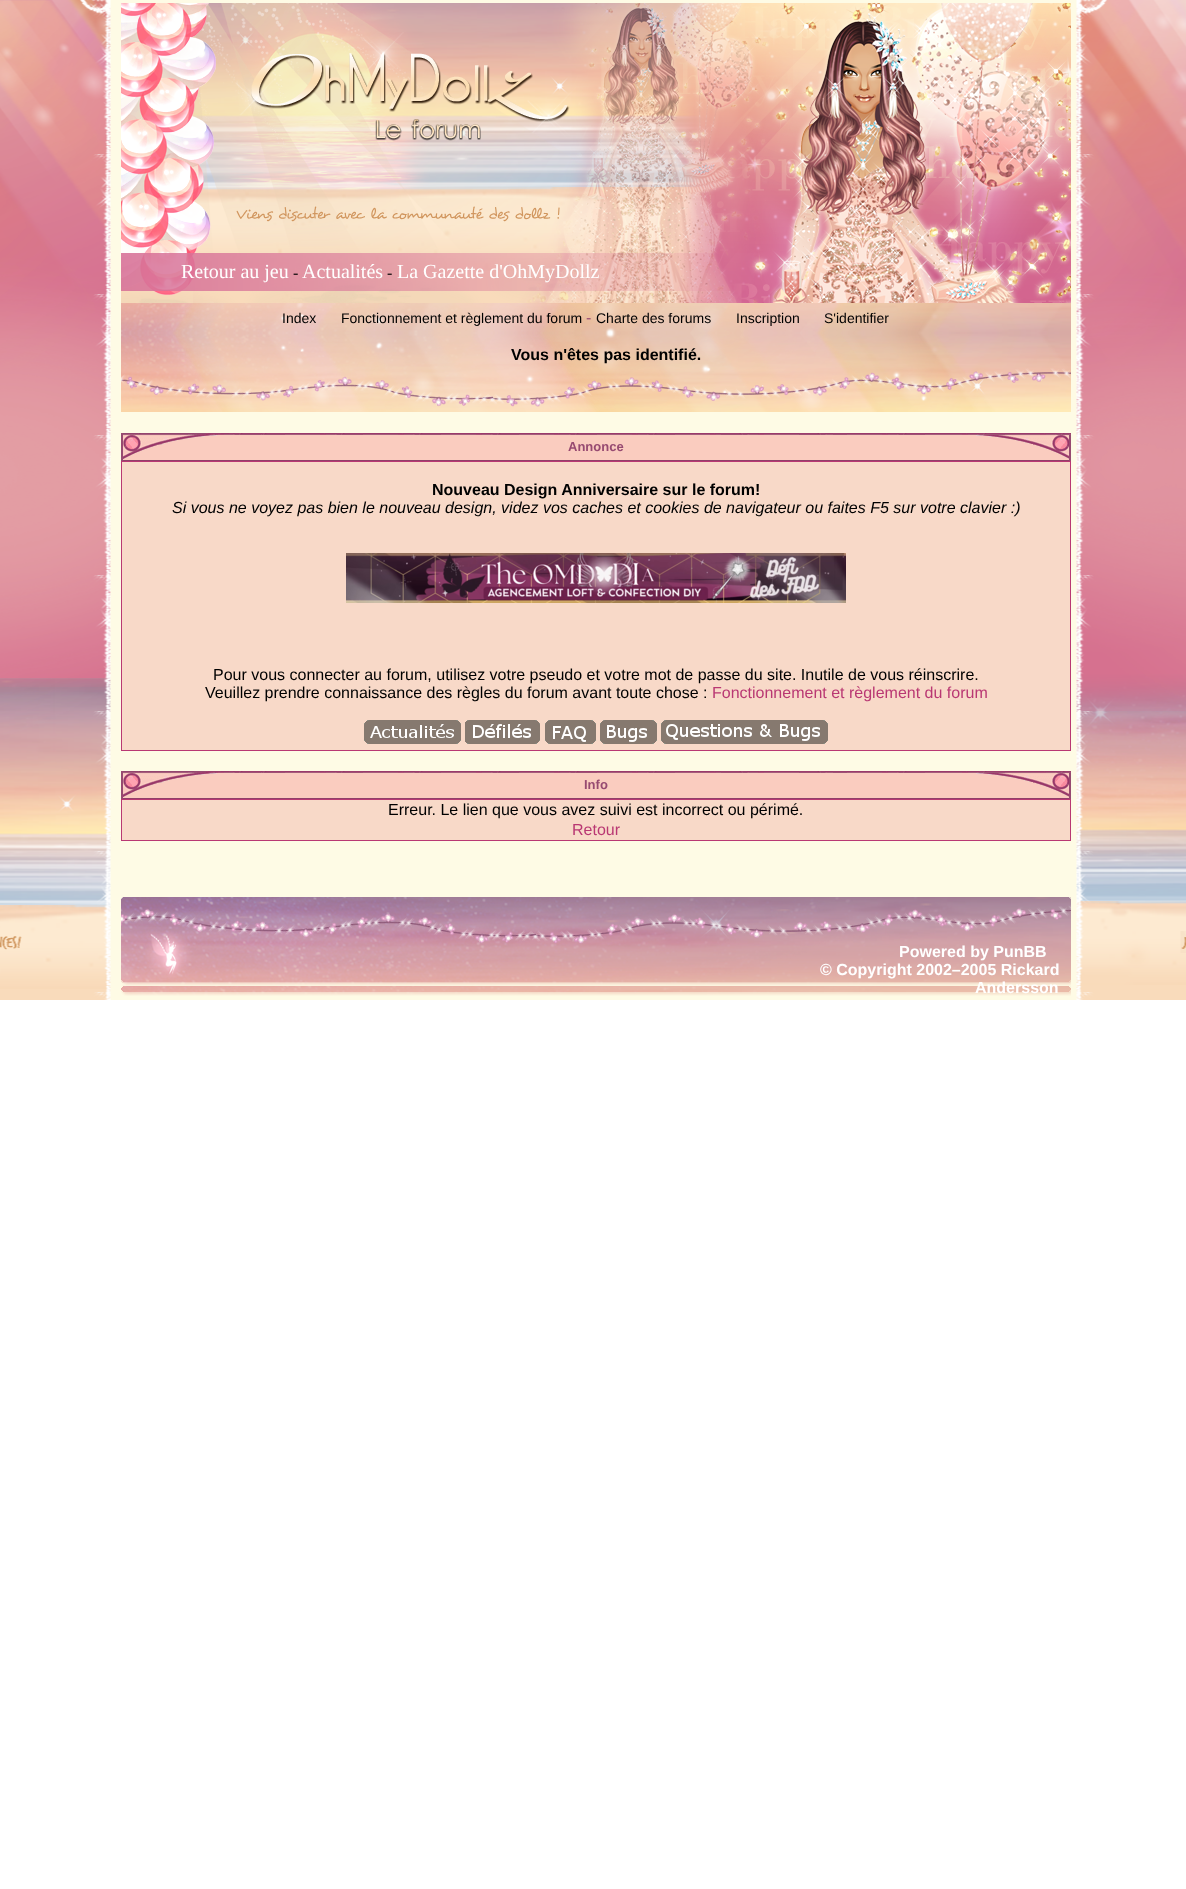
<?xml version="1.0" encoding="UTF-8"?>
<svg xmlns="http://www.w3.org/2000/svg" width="1186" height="1889">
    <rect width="100%" height="100%" fill="#FFFFFF"/>
    <image x="0" y="0" width="1186" height="1000" href="img_01.png"/>
    <image x="121" y="3" width="950" height="300" href="img_02.png"/>
    <text x="181" y="278" font-family="Liberation Serif" font-size="20" fill="#FFFFFF">Retour au jeu</text>
    <text x="293" y="278" font-family="Liberation Serif" font-size="16" fill="#000000">-</text>
    <text x="302" y="278" font-family="Liberation Serif" font-size="20" fill="#FFFFFF">Actualités</text>
    <text x="387" y="278" font-family="Liberation Serif" font-size="16" fill="#000000">-</text>
    <text x="397" y="278" font-family="Liberation Serif" font-size="20" fill="#FFFFFF">La Gazette d'OhMyDollz</text>
    <image x="121" y="303" width="950" height="30" href="img_03.png"/>
    <text x="282" y="323" font-family="Liberation Sans" font-size="14" fill="#000000">Index</text>
    <text x="341" y="323" font-family="Liberation Sans" font-size="14" fill="#000000">Fonctionnement et règlement du forum</text>
    <text x="586" y="323" font-family="Liberation Sans" font-size="16" fill="#974A71">-</text>
    <text x="596" y="323" font-family="Liberation Sans" font-size="14" fill="#000000">Charte des forums</text>
    <text x="736" y="323" font-family="Liberation Sans" font-size="14" fill="#000000">Inscription</text>
    <text x="824" y="323" font-family="Liberation Sans" font-size="14" fill="#000000">S'identifier</text>
    <image x="121" y="333" width="950" height="79" href="img_04.png"/>
    <text x="511" y="360" font-family="Liberation Sans" font-size="16" font-weight="700" fill="#000000">Vous n'êtes pas identifié.</text>
    <image x="121" y="433" width="950" height="28" href="img_05.png"/>
    <text x="568" y="451" font-family="Liberation Sans" font-size="13" font-weight="700" fill="#974A71">Annonce</text>
    <rect x="121.5" y="461.5" width="949" height="289" fill="#F8D9C8" stroke="#B93873"/>
    <text x="432" y="495" font-family="Liberation Sans" font-size="16" font-weight="700" fill="#000000">Nouveau Design Anniversaire sur le forum!</text>
    <text x="172" y="513" font-family="Liberation Sans" font-size="16" font-style="italic" fill="#000000">Si vous ne voyez pas bien le nouveau design, videz vos caches et cookies de navigateur ou faites F5 sur votre clavier :)</text>
    <image x="346" y="553" width="500" height="50" href="img_06.png"/>
    <text x="213" y="680" font-family="Liberation Sans" font-size="16" fill="#000000">Pour vous connecter au forum, utilisez votre pseudo et votre mot de passe du site. Inutile de vous réinscrire.</text>
    <text x="205" y="698" font-family="Liberation Sans" font-size="16" fill="#000000">Veuillez prendre connaissance des règles du forum avant toute chose :</text>
    <text x="712" y="698" font-family="Liberation Sans" font-size="16" fill="#B93873">Fonctionnement et règlement du forum</text>
    <image x="364" y="720" width="97" height="24" href="img_07.png"/>
    <image x="465" y="720" width="75" height="24" href="img_08.png"/>
    <image x="545" y="720" width="51" height="24" href="img_09.png"/>
    <image x="600" y="720" width="57" height="24" href="img_10.png"/>
    <image x="661" y="720" width="167" height="24" href="img_11.png"/>
    <image x="121" y="771" width="950" height="28" href="img_05.png"/>
    <text x="584" y="789" font-family="Liberation Sans" font-size="13" font-weight="700" fill="#974A71">Info</text>
    <rect x="121.5" y="799.5" width="949" height="41" fill="#F8D9C8" stroke="#B93873"/>
    <text x="388" y="815" font-family="Liberation Sans" font-size="16" fill="#000000">Erreur. Le lien que vous avez suivi est incorrect ou périmé.</text>
    <text x="572" y="835" font-family="Liberation Sans" font-size="16" fill="#B93873">Retour</text>
    <image x="121" y="897" width="950" height="99" href="img_12.png"/>
    <text x="899" y="957" font-family="Liberation Sans" font-size="16" font-weight="700" fill="#FFFFFF">Powered by PunBB</text>
    <text x="820" y="975" font-family="Liberation Sans" font-size="16" font-weight="700" fill="#FFFFFF">© Copyright 2002–2005 Rickard</text>
    <text x="975" y="993" font-family="Liberation Sans" font-size="16" font-weight="700" fill="#FFFFFF">Andersson</text>
</svg>
